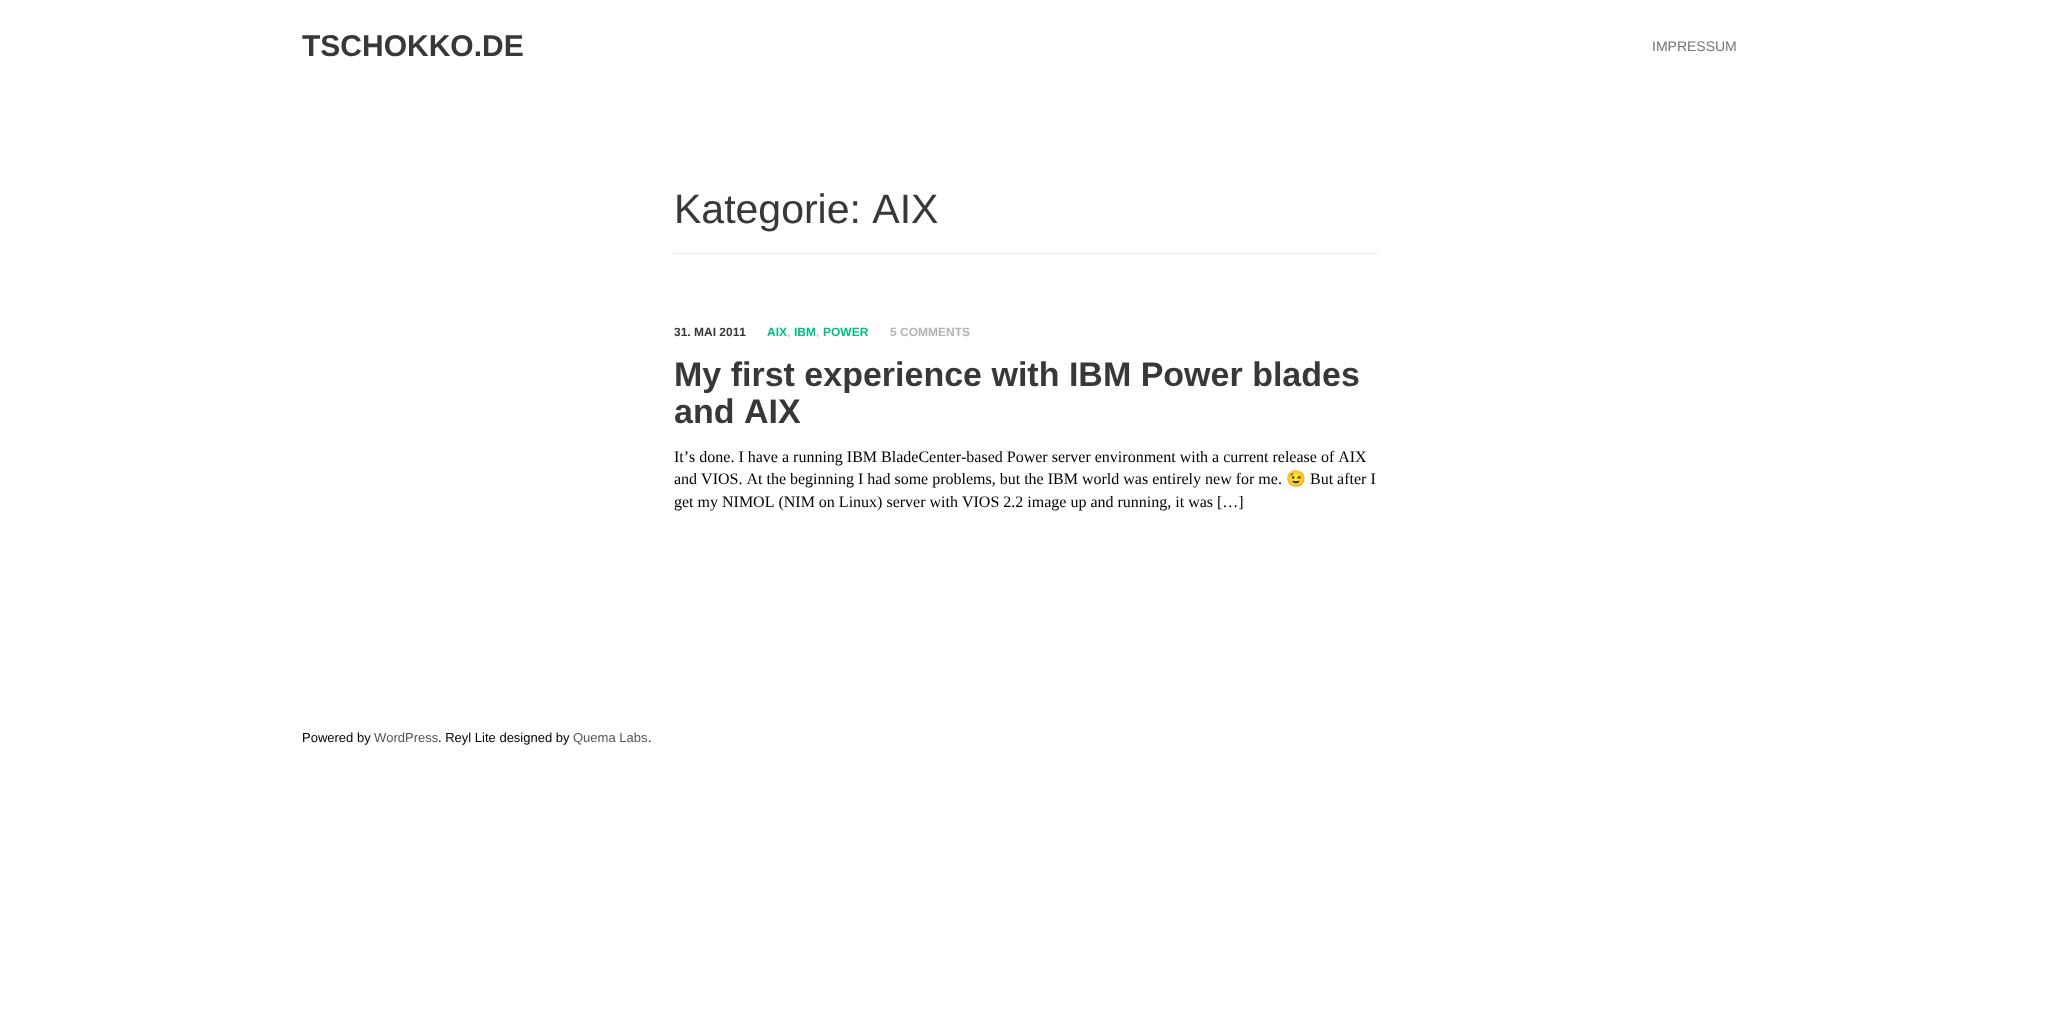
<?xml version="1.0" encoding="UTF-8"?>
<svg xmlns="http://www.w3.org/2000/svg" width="2053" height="1036">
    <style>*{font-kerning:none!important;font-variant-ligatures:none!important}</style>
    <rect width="100%" height="100%" fill="#FFFFFF"/>
    <text x="302" y="56" font-family="Liberation Sans" font-size="30" font-weight="700" fill="#383838">TSCHOKKO.DE</text>
    <text x="1652" y="51" font-family="Liberation Sans" font-size="14" fill="#747474">IMPRESSUM</text>
    <rect x="674" y="253" width="705" height="1" fill="#EEEEEE"/>
    <text x="674" y="223" font-family="Liberation Sans" font-size="41" fill="#383838">Kategorie: AIX</text>
    <text x="674" y="336" font-family="Liberation Sans" font-size="12" font-weight="700" fill="#383838">31. MAI 2011</text>
    <text x="767" y="336" font-family="Liberation Sans" font-size="12" font-weight="700" fill="#00BD85">AIX</text>
    <text x="787" y="336" font-family="Liberation Sans" font-size="12" font-weight="700" fill="#C7C7C7">,</text>
    <text x="794" y="336" font-family="Liberation Sans" font-size="12" font-weight="700" fill="#00BD85">IBM</text>
    <text x="816" y="336" font-family="Liberation Sans" font-size="12" font-weight="700" fill="#C7C7C7">,</text>
    <text x="823" y="336" font-family="Liberation Sans" font-size="12" font-weight="700" fill="#00BD85">POWER</text>
    <text x="890" y="336" font-family="Liberation Sans" font-size="12" font-weight="700" fill="#B3B3B3">5 COMMENTS</text>
    <text font-family="Liberation Sans" font-size="34" font-weight="700" fill="#383838">
        <tspan x="674" y="386">My first experience with IBM Power blades</tspan>
        <tspan x="674" y="423">and AIX</tspan>
    </text>
    <text font-family="Liberation Serif" font-size="16" fill="#000000">
        <tspan x="674" y="462">It’s done. I have a running IBM BladeCenter-based Power server environment with a current release of AIX</tspan>
        <tspan x="674" y="484">and VIOS. At the beginning I had some problems, but the IBM world was entirely new for me.</tspan>
    </text>
    <text x="1286" y="484" font-family="Noto Color Emoji" font-size="16" fill="#000000">😉</text>
    <text x="1310" y="484" font-family="Liberation Serif" font-size="16" fill="#000000">But after I</text>
    <text x="674" y="507" font-family="Liberation Serif" font-size="16" fill="#000000">get my NIMOL (NIM on Linux) server with VIOS 2.2 image up and running, it was […]</text>
    <text x="302" y="742" font-family="Liberation Sans" font-size="13" fill="#000000">Powered by</text>
    <text x="374" y="742" font-family="Liberation Sans" font-size="13" fill="#555555">WordPress</text>
    <text x="438" y="742" font-family="Liberation Sans" font-size="13" fill="#000000">. Reyl Lite designed by</text>
    <text x="573" y="742" font-family="Liberation Sans" font-size="13" fill="#555555">Quema Labs</text>
    <text x="648" y="742" font-family="Liberation Sans" font-size="13" fill="#000000">.</text>
</svg>
